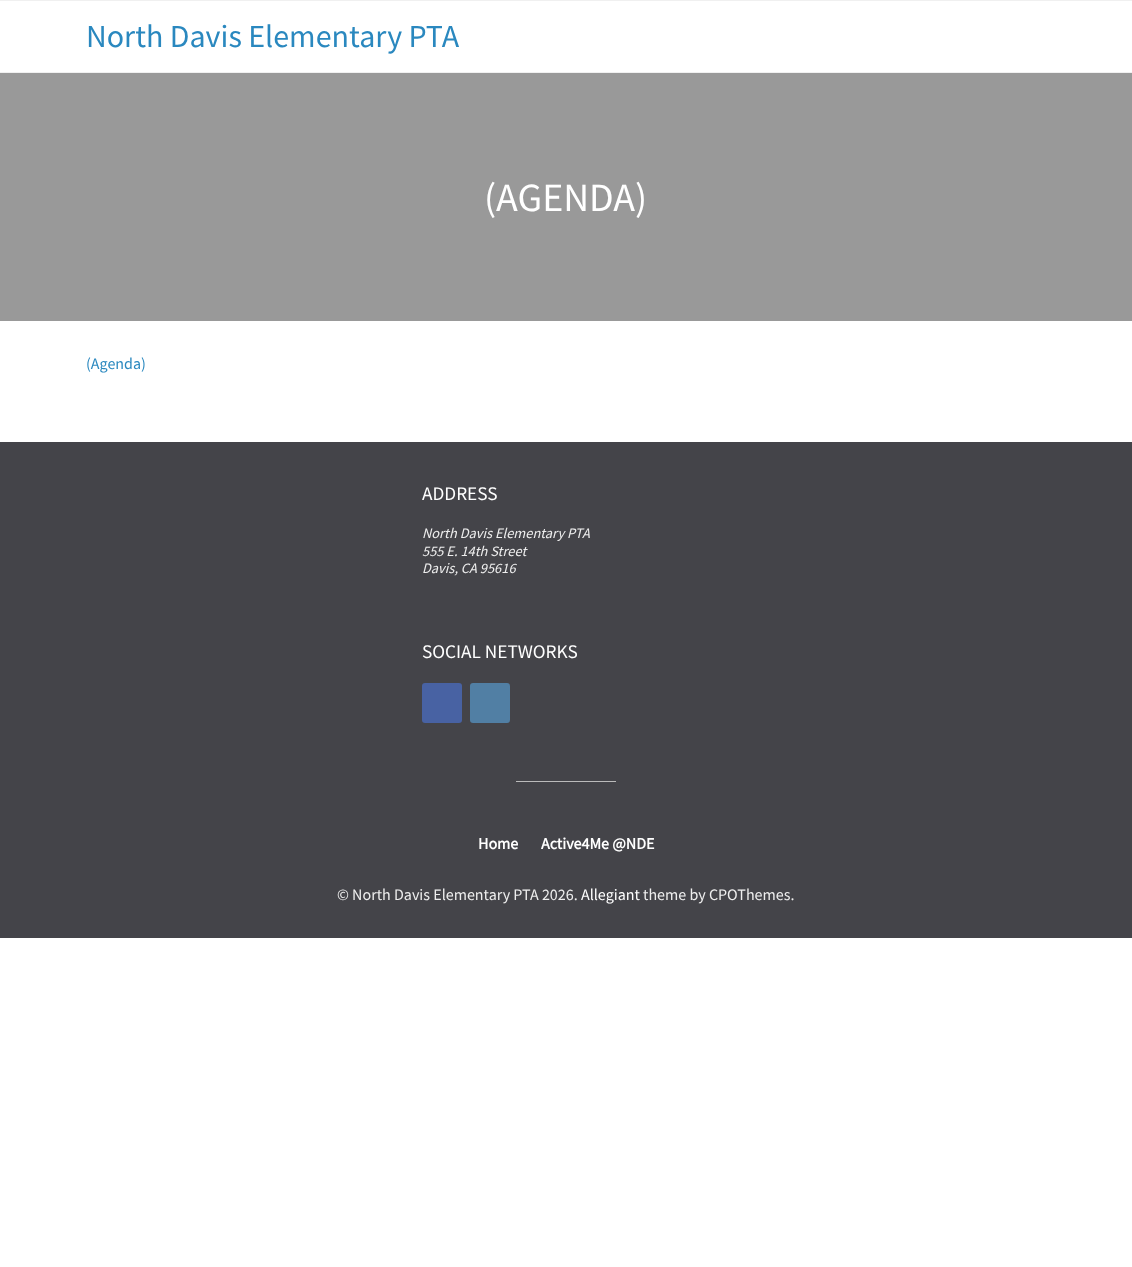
<?xml version="1.0" encoding="UTF-8"?>
<svg xmlns="http://www.w3.org/2000/svg" width="1132" height="1267">
    <rect width="100%" height="100%" fill="#FFFFFF"/>
    <rect x="0" y="0" width="1132" height="1" fill="#F0F0F0"/>
    <rect x="0" y="72" width="1132" height="1" fill="#F0F0F0"/>
    <text x="86" y="47" font-family="Source Sans Pro" font-size="32" fill="#2A88BF">North Davis Elementary PTA</text>
    <rect x="0" y="73" width="1132" height="248" fill="#999999"/>
    <text x="484" y="211" font-family="Source Sans Pro" font-size="40" fill="#FFFFFF">(AGENDA)</text>
    <text x="86" y="369" font-family="Source Sans Pro" font-size="16" fill="#2A88BF">(Agenda)</text>
    <rect x="0" y="442" width="1132" height="496" fill="#444449"/>
    <text x="422" y="500" font-family="Source Sans Pro" font-size="19.25" fill="#FFFFFF">ADDRESS</text>
    <text font-family="Source Sans Pro" font-size="14.4" font-style="italic" fill="#EEEEEE">
        <tspan x="422" y="538">North Davis Elementary PTA</tspan>
        <tspan x="422" y="556">555 E. 14th Street</tspan>
        <tspan x="422" y="573">Davis, CA 95616</tspan>
    </text>
    <text x="422" y="658" font-family="Source Sans Pro" font-size="19.25" fill="#FFFFFF">SOCIAL NETWORKS</text>
    <rect x="422" y="683" width="40" height="40" rx="3" fill="#4862A3"/>
    <rect x="470" y="683" width="40" height="40" rx="3" fill="#517FA4"/>
    <rect x="516" y="781" width="100" height="1" fill="#BBBBBB"/>
    <text x="478" y="849" font-family="Source Sans Pro" font-size="16" font-weight="700" fill="#FFFFFF">Home</text>
    <text x="541" y="849" font-family="Source Sans Pro" font-size="16" font-weight="700" fill="#FFFFFF">Active4Me @NDE</text>
    <text x="337" y="900" font-family="Source Sans Pro" font-size="16" fill="#EEEEEE">© North Davis Elementary PTA 2026.</text>
    <text x="581" y="900" font-family="Source Sans Pro" font-size="16" fill="#FFFFFF">Allegiant</text>
    <text x="643" y="900" font-family="Source Sans Pro" font-size="16" fill="#EEEEEE">theme by CPOThemes.</text>
</svg>
